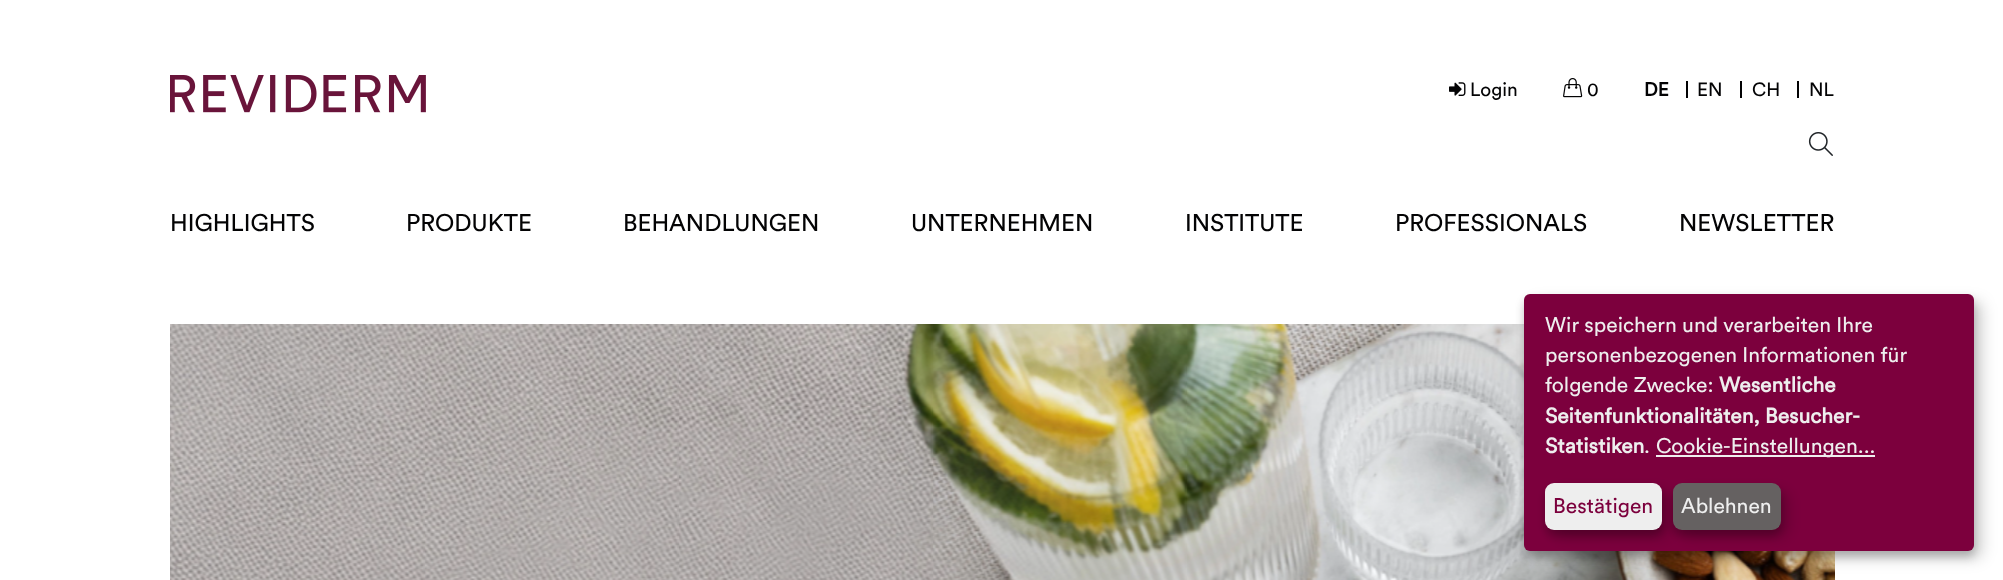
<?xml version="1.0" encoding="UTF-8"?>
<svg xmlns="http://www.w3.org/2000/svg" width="2003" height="580">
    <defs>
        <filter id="blur1" x="-50%" y="-200%" width="200%" height="500%"><feGaussianBlur stdDeviation="7.5"/></filter>
        <filter id="blur2" x="-50%" y="-200%" width="200%" height="500%"><feGaussianBlur stdDeviation="4.5"/></filter>
    </defs>
    <rect width="100%" height="100%" fill="#FFFFFF"/>
    <image x="170" y="75" width="256" height="38" href="img_01.png"/>
    <image x="1449" y="82" width="17" height="14" href="img_02.png"/>
    <text x="1470" y="96" font-family="Circular" font-size="19" fill="#030304">Login</text>
    <image x="1563" y="78" width="20" height="20" href="img_03.png"/>
    <text x="1587" y="96" font-family="Circular" font-size="19" fill="#030304">0</text>
    <text x="1644" y="96" font-family="Circular" font-size="19" font-weight="700" fill="#030304">DE</text>
    <rect x="1686" y="81" width="2" height="17" fill="#030304"/>
    <text x="1697" y="96" font-family="Circular" font-size="19" fill="#030304">EN</text>
    <rect x="1740" y="81" width="2" height="17" fill="#030304"/>
    <text x="1752" y="96" font-family="Circular" font-size="19" fill="#030304">CH</text>
    <rect x="1797" y="81" width="2" height="17" fill="#030304"/>
    <text x="1809" y="96" font-family="Circular" font-size="19" fill="#030304">NL</text>
    <image x="1808" y="132" width="25" height="24" href="img_04.png"/>
    <text x="170" y="231" font-family="Circular" font-size="24" fill="#030304">HIGHLIGHTS</text>
    <text x="406" y="231" font-family="Circular" font-size="24" fill="#030304">PRODUKTE</text>
    <text x="623" y="231" font-family="Circular" font-size="24" fill="#030304">BEHANDLUNGEN</text>
    <text x="911" y="231" font-family="Circular" font-size="24" fill="#030304">UNTERNEHMEN</text>
    <text x="1185" y="231" font-family="Circular" font-size="24" fill="#030304">INSTITUTE</text>
    <text x="1395" y="231" font-family="Circular" font-size="24" fill="#030304">PROFESSIONALS</text>
    <text x="1679" y="231" font-family="Circular" font-size="24" fill="#030304">NEWSLETTER</text>
    <image x="170" y="324" width="1665" height="256" href="img_05.png"/>
    <rect x="1532" y="302" width="450" height="256" rx="6" fill="#000000" fill-opacity="0.19" filter="url(#blur1)"/>
    <rect x="1524" y="300" width="450" height="257" rx="6" fill="#000000" fill-opacity="0.2" filter="url(#blur2)"/>
    <rect x="1524" y="294" width="450" height="257" rx="6" fill="#7C003D"/>
    <text font-family="Circular" font-size="21" fill="#EEEEEE">
        <tspan x="1545" y="332">Wir speichern und verarbeiten Ihre</tspan>
        <tspan x="1545" y="362">personenbezogenen Informationen für</tspan>
        <tspan x="1545" y="392">folgende Zwecke:</tspan>
    </text>
    <text x="1719" y="392" font-family="Circular" font-size="21" font-weight="700" fill="#EEEEEE">Wesentliche</text>
    <text font-family="Circular" font-size="21" font-weight="700" fill="#EEEEEE">
        <tspan x="1545" y="423">Seitenfunktionalitäten, Besucher-</tspan>
        <tspan x="1545" y="453">Statistiken</tspan>
    </text>
    <text x="1644" y="453" font-family="Circular" font-size="21" fill="#EEEEEE">.</text>
    <rect x="1656" y="455" width="219" height="2" fill="#EEEEEE"/>
    <text x="1656" y="453" font-family="Circular" font-size="21" fill="#EEEEEE">Cookie-Einstellungen...</text>
    <rect x="1553" y="491" width="117" height="46" rx="9" fill="#000000" fill-opacity="0.19" filter="url(#blur1)"/>
    <rect x="1545" y="489" width="117" height="47" rx="9" fill="#000000" fill-opacity="0.2" filter="url(#blur2)"/>
    <rect x="1545" y="483" width="117" height="47" rx="9" fill="#EEEEEE"/>
    <text x="1553" y="513" font-family="Circular" font-size="21" fill="#7C003D">Bestätigen</text>
    <rect x="1680" y="491" width="108" height="46" rx="9" fill="#000000" fill-opacity="0.19" filter="url(#blur1)"/>
    <rect x="1673" y="489" width="108" height="47" rx="9" fill="#000000" fill-opacity="0.2" filter="url(#blur2)"/>
    <rect x="1673" y="483" width="108" height="47" rx="9" fill="#656161"/>
    <text x="1681" y="513" font-family="Circular" font-size="21" fill="#EEEEEE">Ablehnen</text>
</svg>
